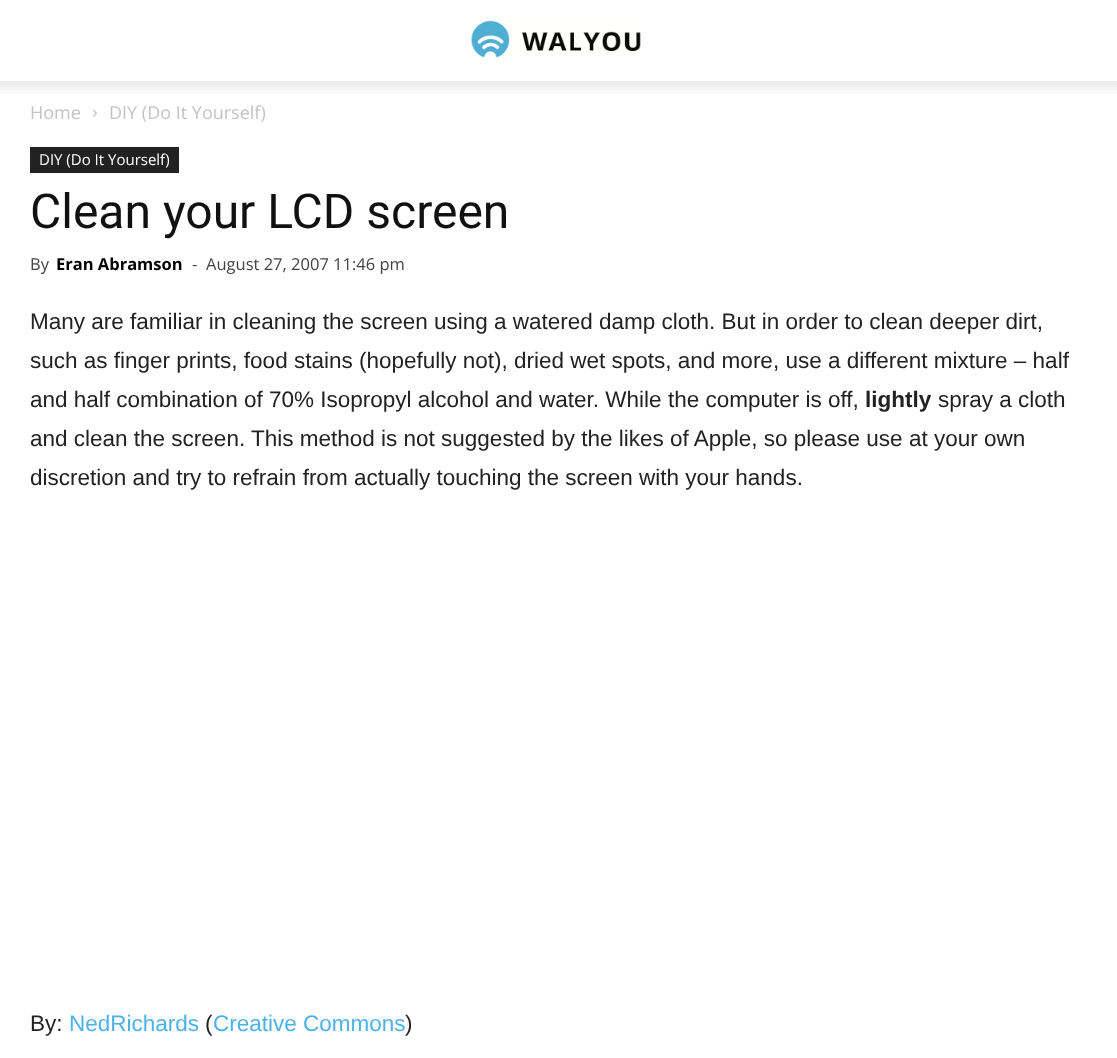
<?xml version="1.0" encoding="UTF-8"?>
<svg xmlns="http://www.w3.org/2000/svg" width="1117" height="1058">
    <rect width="100%" height="100%" fill="#FFFFFF"/>
    <image x="471" y="20" width="170" height="38" href="img_01.png"/>
    <image x="0" y="81" width="1117" height="13" href="img_02.png"/>
    <text x="30" y="119" font-family="Open Sans" font-size="18" fill="#C3C3C3">Home</text>
    <image x="93" y="109" width="4" height="8" href="img_03.png"/>
    <text x="109" y="119" font-family="Open Sans" font-size="18" fill="#C3C3C3">DIY (Do It Yourself)</text>
    <rect x="30" y="147" width="149" height="26" fill="#222222"/>
    <text x="39" y="165" font-family="Open Sans" font-size="15" fill="#FFFFFF">DIY (Do It Yourself)</text>
    <text x="30" y="228" font-family="Roboto" font-size="48" fill="#111111">Clean your LCD screen</text>
    <text x="30" y="270" font-family="Open Sans" font-size="16.5" fill="#444444">By</text>
    <text x="56" y="270" font-family="Open Sans" font-size="16.5" font-weight="700" fill="#000000">Eran Abramson</text>
    <text x="192" y="270" font-family="Open Sans" font-size="16.5" fill="#444444">-</text>
    <text x="206" y="270" font-family="Open Sans" font-size="16.5" fill="#444444">August 27, 2007 11:46 pm</text>
    <text font-family="Liberation Sans" font-size="22.5" fill="#222222">
        <tspan x="30" y="329">Many are familiar in cleaning the screen using a watered damp cloth. But in order to clean deeper dirt,</tspan>
        <tspan x="30" y="368">such as finger prints, food stains (hopefully not), dried wet spots, and more, use a different mixture – half</tspan>
        <tspan x="30" y="407">and half combination of 70% Isopropyl alcohol and water. While the computer is off,</tspan>
    </text>
    <text x="865" y="407" font-family="Liberation Sans" font-size="22.5" font-weight="700" fill="#222222">lightly</text>
    <text x="938" y="407" font-family="Liberation Sans" font-size="22.5" fill="#222222">spray a cloth</text>
    <text font-family="Liberation Sans" font-size="22.5" fill="#222222">
        <tspan x="30" y="446">and clean the screen. This method is not suggested by the likes of Apple, so please use at your own</tspan>
        <tspan x="30" y="485">discretion and try to refrain from actually touching the screen with your hands.</tspan>
    </text>
    <text x="30" y="1031" font-family="Liberation Sans" font-size="22.5" fill="#222222">By:</text>
    <text x="69" y="1031" font-family="Liberation Sans" font-size="22.5" fill="#4DB2EC">NedRichards</text>
    <text x="205" y="1031" font-family="Liberation Sans" font-size="22.5" fill="#222222">(</text>
    <text x="213" y="1031" font-family="Liberation Sans" font-size="22.5" fill="#4DB2EC">Creative Commons</text>
    <text x="405" y="1031" font-family="Liberation Sans" font-size="22.5" fill="#222222">)</text>
</svg>
